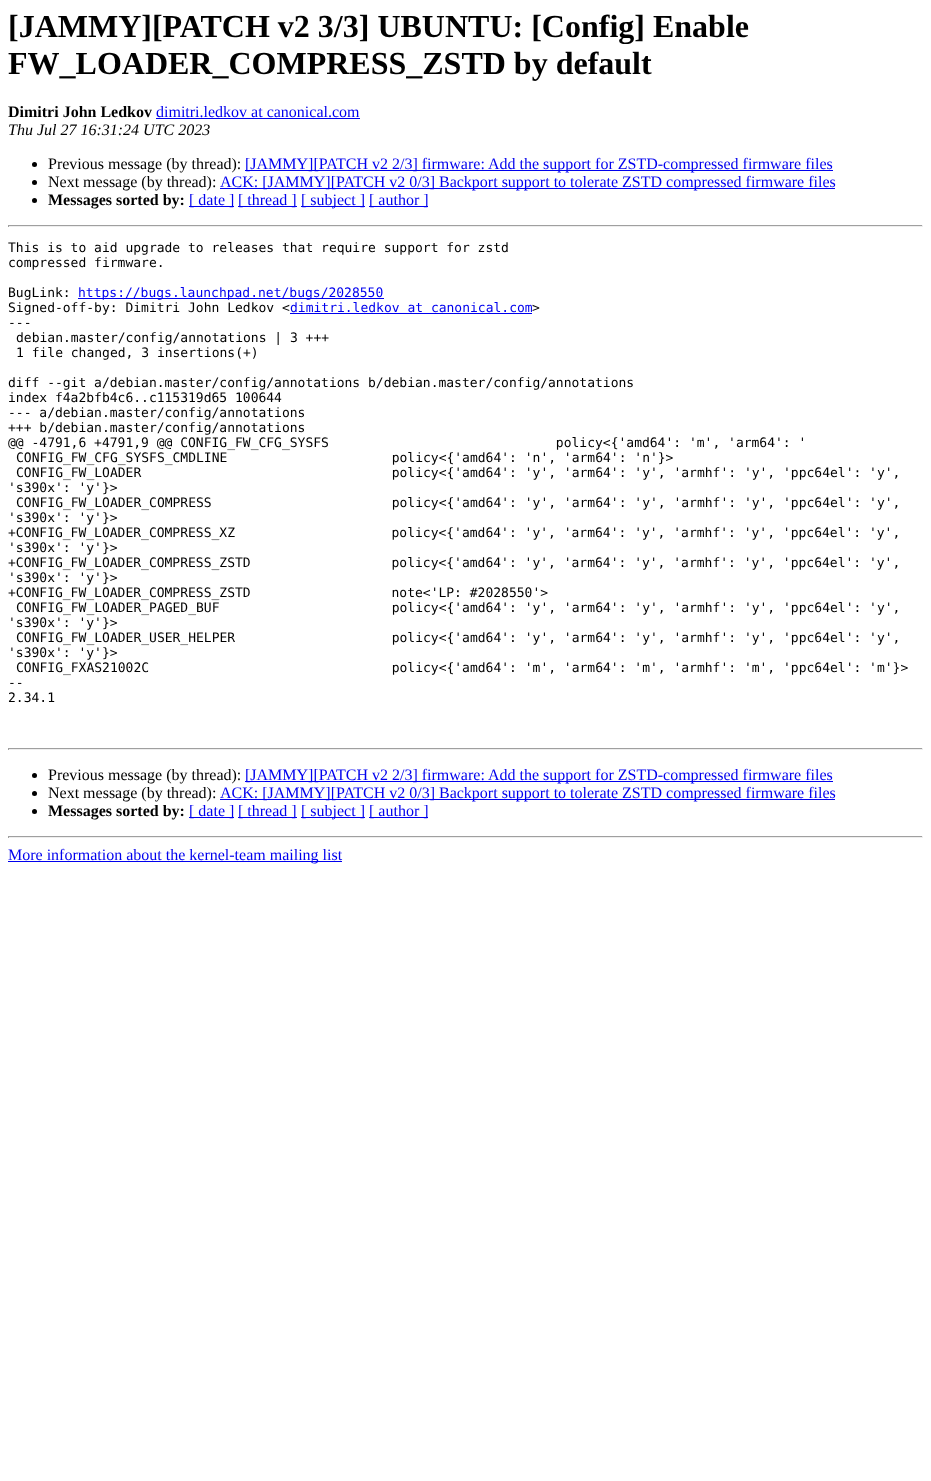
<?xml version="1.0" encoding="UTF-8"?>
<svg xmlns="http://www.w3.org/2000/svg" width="931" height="1481">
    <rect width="100%" height="100%" fill="#FFFFFF"/>
    <text font-family="Liberation Serif" font-size="32" font-weight="700" fill="#000000">
        <tspan x="8" y="37">[JAMMY][PATCH v2 3/3] UBUNTU: [Config] Enable</tspan>
        <tspan x="8" y="74">FW_LOADER_COMPRESS_ZSTD by default</tspan>
    </text>
    <text x="8" y="117" font-family="Liberation Serif" font-size="16" font-weight="700" fill="#000000">Dimitri John Ledkov</text>
    <text x="156" y="117" font-family="Liberation Serif" font-size="16" fill="#0000EE">dimitri.ledkov at canonical.com</text>
    <rect x="156" y="118" width="204" height="1" fill="#0000EE"/>
    <text x="8" y="135" font-family="Liberation Serif" font-size="16" font-style="italic" fill="#000000">Thu Jul 27 16:31:24 UTC 2023</text>
    <circle cx="34.5" cy="164.5" r="2.5" fill="#000000"/>
    <text x="48" y="169" font-family="Liberation Serif" font-size="16" fill="#000000">Previous message (by thread):</text>
    <rect x="245" y="170" width="588" height="1" fill="#0000EE"/>
    <text x="245" y="169" font-family="Liberation Serif" font-size="16" fill="#0000EE">[JAMMY][PATCH v2 2/3] firmware: Add the support for ZSTD-compressed firmware files</text>
    <circle cx="34.5" cy="182.5" r="2.5" fill="#000000"/>
    <text x="48" y="187" font-family="Liberation Serif" font-size="16" fill="#000000">Next message (by thread):</text>
    <rect x="220" y="188" width="615" height="1" fill="#0000EE"/>
    <text x="220" y="187" font-family="Liberation Serif" font-size="16" fill="#0000EE">ACK: [JAMMY][PATCH v2 0/3] Backport support to tolerate ZSTD compressed firmware files</text>
    <circle cx="34.5" cy="200.5" r="2.5" fill="#000000"/>
    <text x="48" y="205" font-family="Liberation Serif" font-size="16" font-weight="700" fill="#000000">Messages sorted by:</text>
    <rect x="189" y="206" width="45" height="1" fill="#0000EE"/>
    <text x="189" y="205" font-family="Liberation Serif" font-size="16" fill="#0000EE">[ date ]</text>
    <rect x="238" y="206" width="59" height="1" fill="#0000EE"/>
    <text x="238" y="205" font-family="Liberation Serif" font-size="16" fill="#0000EE">[ thread ]</text>
    <rect x="301" y="206" width="64" height="1" fill="#0000EE"/>
    <text x="301" y="205" font-family="Liberation Serif" font-size="16" fill="#0000EE">[ subject ]</text>
    <rect x="369" y="206" width="59" height="1" fill="#0000EE"/>
    <text x="369" y="205" font-family="Liberation Serif" font-size="16" fill="#0000EE">[ author ]</text>
    <rect x="8" y="225" width="915" height="1" fill="#9F9F9F"/>
    <rect x="922" y="225" width="1" height="2" fill="#EEEEEE"/>
    <rect x="8" y="226" width="915" height="1" fill="#EEEEEE"/>
    <rect x="8" y="225" width="1" height="2" fill="#9F9F9F"/>
    <text font-family="DejaVu Sans Mono" font-size="13" fill="#000000">
        <tspan x="8" y="252">This is to aid upgrade to releases that require support for zstd</tspan>
        <tspan x="8" y="267">compressed firmware.</tspan>
    </text>
    <text x="8" y="297" font-family="DejaVu Sans Mono" font-size="13" fill="#000000">BugLink:</text>
    <rect x="78" y="298" width="306" height="1" fill="#0000EE"/>
    <text x="78" y="297" font-family="DejaVu Sans Mono" font-size="13" fill="#0000EE">https://bugs.launchpad.net/bugs/2028550</text>
    <text x="8" y="312" font-family="DejaVu Sans Mono" font-size="13" fill="#000000">Signed-off-by: Dimitri John Ledkov &lt;</text>
    <text x="290" y="312" font-family="DejaVu Sans Mono" font-size="13" fill="#0000EE">dimitri.ledkov at canonical.com</text>
    <rect x="290" y="313" width="242" height="1" fill="#0000EE"/>
    <text x="532" y="312" font-family="DejaVu Sans Mono" font-size="13" fill="#000000">&gt;</text>
    <text x="8" y="327" font-family="DejaVu Sans Mono" font-size="13" fill="#000000">---</text>
    <text font-family="DejaVu Sans Mono" font-size="13" fill="#000000">
        <tspan x="16" y="342">debian.master/config/annotations | 3 +++</tspan>
        <tspan x="16" y="357">1 file changed, 3 insertions(+)</tspan>
    </text>
    <text font-family="DejaVu Sans Mono" font-size="13" fill="#000000" xml:space="preserve"><tspan x="8" y="387">diff --git a/debian.master/config/annotations b/debian.master/config/annotations</tspan><tspan x="8" y="402">index f4a2bfb4c6..c115319d65 100644</tspan><tspan x="8" y="417">--- a/debian.master/config/annotations</tspan><tspan x="8" y="432">+++ b/debian.master/config/annotations</tspan><tspan x="8" y="447">@@ -4791,6 +4791,9 @@ CONFIG_FW_CFG_SYSFS                             policy&lt;{'amd64': 'm', 'arm64': '</tspan></text>
    <text font-family="DejaVu Sans Mono" font-size="13" fill="#000000" xml:space="preserve"><tspan x="16" y="462">CONFIG_FW_CFG_SYSFS_CMDLINE                     policy&lt;{'amd64': 'n', 'arm64': 'n'}&gt;</tspan><tspan x="16" y="477">CONFIG_FW_LOADER                                policy&lt;{'amd64': 'y', 'arm64': 'y', 'armhf': 'y', 'ppc64el': 'y',</tspan></text>
    <text x="8" y="492" font-family="DejaVu Sans Mono" font-size="13" fill="#000000">'s390x': 'y'}&gt;</text>
    <text x="16" y="507" font-family="DejaVu Sans Mono" font-size="13" fill="#000000" xml:space="preserve">CONFIG_FW_LOADER_COMPRESS                       policy&lt;{'amd64': 'y', 'arm64': 'y', 'armhf': 'y', 'ppc64el': 'y',</text>
    <text font-family="DejaVu Sans Mono" font-size="13" fill="#000000" xml:space="preserve"><tspan x="8" y="522">'s390x': 'y'}&gt;</tspan><tspan x="8" y="537">+CONFIG_FW_LOADER_COMPRESS_XZ                    policy&lt;{'amd64': 'y', 'arm64': 'y', 'armhf': 'y', 'ppc64el': 'y',</tspan><tspan x="8" y="552">'s390x': 'y'}&gt;</tspan><tspan x="8" y="567">+CONFIG_FW_LOADER_COMPRESS_ZSTD                  policy&lt;{'amd64': 'y', 'arm64': 'y', 'armhf': 'y', 'ppc64el': 'y',</tspan><tspan x="8" y="582">'s390x': 'y'}&gt;</tspan><tspan x="8" y="597">+CONFIG_FW_LOADER_COMPRESS_ZSTD                  note&lt;'LP: #2028550'&gt;</tspan></text>
    <text x="16" y="612" font-family="DejaVu Sans Mono" font-size="13" fill="#000000" xml:space="preserve">CONFIG_FW_LOADER_PAGED_BUF                      policy&lt;{'amd64': 'y', 'arm64': 'y', 'armhf': 'y', 'ppc64el': 'y',</text>
    <text x="8" y="627" font-family="DejaVu Sans Mono" font-size="13" fill="#000000">'s390x': 'y'}&gt;</text>
    <text x="16" y="642" font-family="DejaVu Sans Mono" font-size="13" fill="#000000" xml:space="preserve">CONFIG_FW_LOADER_USER_HELPER                    policy&lt;{'amd64': 'y', 'arm64': 'y', 'armhf': 'y', 'ppc64el': 'y',</text>
    <text x="8" y="657" font-family="DejaVu Sans Mono" font-size="13" fill="#000000">'s390x': 'y'}&gt;</text>
    <text x="16" y="672" font-family="DejaVu Sans Mono" font-size="13" fill="#000000" xml:space="preserve">CONFIG_FXAS21002C                               policy&lt;{'amd64': 'm', 'arm64': 'm', 'armhf': 'm', 'ppc64el': 'm'}&gt;</text>
    <text font-family="DejaVu Sans Mono" font-size="13" fill="#000000">
        <tspan x="8" y="687">--</tspan>
        <tspan x="8" y="702">2.34.1</tspan>
    </text>
    <rect x="8" y="748" width="915" height="1" fill="#9F9F9F"/>
    <rect x="922" y="748" width="1" height="2" fill="#EEEEEE"/>
    <rect x="8" y="749" width="915" height="1" fill="#EEEEEE"/>
    <rect x="8" y="748" width="1" height="2" fill="#9F9F9F"/>
    <circle cx="34.5" cy="775.5" r="2.5" fill="#000000"/>
    <text x="48" y="780" font-family="Liberation Serif" font-size="16" fill="#000000">Previous message (by thread):</text>
    <rect x="245" y="781" width="588" height="1" fill="#0000EE"/>
    <text x="245" y="780" font-family="Liberation Serif" font-size="16" fill="#0000EE">[JAMMY][PATCH v2 2/3] firmware: Add the support for ZSTD-compressed firmware files</text>
    <circle cx="34.5" cy="793.5" r="2.5" fill="#000000"/>
    <text x="48" y="798" font-family="Liberation Serif" font-size="16" fill="#000000">Next message (by thread):</text>
    <rect x="220" y="799" width="615" height="1" fill="#0000EE"/>
    <text x="220" y="798" font-family="Liberation Serif" font-size="16" fill="#0000EE">ACK: [JAMMY][PATCH v2 0/3] Backport support to tolerate ZSTD compressed firmware files</text>
    <circle cx="34.5" cy="811.5" r="2.5" fill="#000000"/>
    <text x="48" y="816" font-family="Liberation Serif" font-size="16" font-weight="700" fill="#000000">Messages sorted by:</text>
    <rect x="189" y="817" width="45" height="1" fill="#0000EE"/>
    <text x="189" y="816" font-family="Liberation Serif" font-size="16" fill="#0000EE">[ date ]</text>
    <rect x="238" y="817" width="59" height="1" fill="#0000EE"/>
    <text x="238" y="816" font-family="Liberation Serif" font-size="16" fill="#0000EE">[ thread ]</text>
    <rect x="301" y="817" width="64" height="1" fill="#0000EE"/>
    <text x="301" y="816" font-family="Liberation Serif" font-size="16" fill="#0000EE">[ subject ]</text>
    <rect x="369" y="817" width="59" height="1" fill="#0000EE"/>
    <text x="369" y="816" font-family="Liberation Serif" font-size="16" fill="#0000EE">[ author ]</text>
    <rect x="8" y="836" width="915" height="1" fill="#9F9F9F"/>
    <rect x="922" y="836" width="1" height="2" fill="#EEEEEE"/>
    <rect x="8" y="837" width="915" height="1" fill="#EEEEEE"/>
    <rect x="8" y="836" width="1" height="2" fill="#9F9F9F"/>
    <rect x="8" y="861" width="334" height="1" fill="#0000EE"/>
    <text x="8" y="860" font-family="Liberation Serif" font-size="16" fill="#0000EE">More information about the kernel-team mailing list</text>
</svg>
